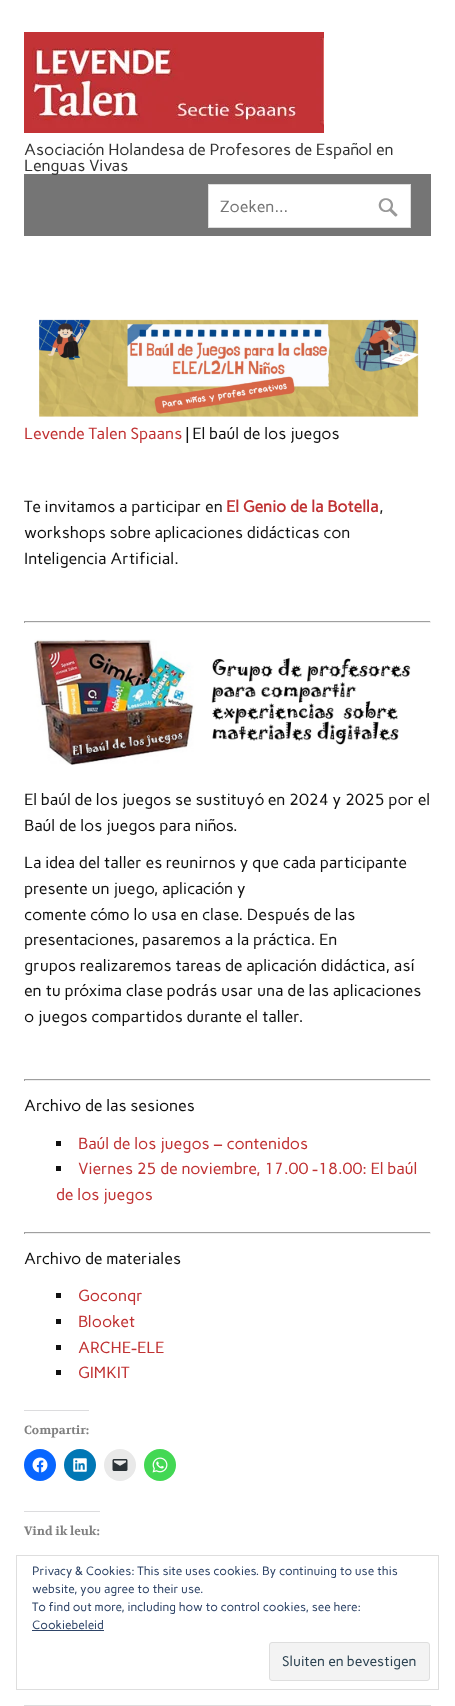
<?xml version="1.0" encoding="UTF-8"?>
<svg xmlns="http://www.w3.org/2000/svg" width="455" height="1706">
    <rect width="100%" height="100%" fill="#FFFFFF"/>
    <image x="24" y="32" width="300" height="101" href="img_01.png"/>
    <text x="24" y="155" font-family="Carme" font-size="16" fill="#333333">Asociación Holandesa de Profesores de Español en</text>
    <rect x="24" y="174" width="407" height="62" fill="#757575"/>
    <text x="24" y="171" font-family="Carme" font-size="16" fill="#333333">Lenguas Vivas</text>
    <rect x="208.5" y="184.5" width="202" height="43" fill="#FFFFFF" stroke="#DDDDDD"/>
    <text x="220" y="212" font-family="Carme" font-size="16" fill="#757575">Zoeken...</text>
    <image x="378" y="198" width="20" height="19" href="img_02.png"/>
    <image x="39" y="319" width="380" height="98" href="img_03.png"/>
    <text x="24" y="439" font-family="Carme" font-size="16" fill="#C03233">Levende Talen Spaans</text>
    <text x="186" y="439" font-family="Carme" font-size="16" fill="#111111">| El baúl de los juegos</text>
    <rect x="24" y="1705" width="407" height="1" fill="#DDDDDD"/>
    <text x="24" y="512" font-family="Carme" font-size="16" fill="#111111">Te invitamos a participar en</text>
    <text x="226" y="512" font-family="Carme" font-size="16" font-weight="700" fill="#C03233">El Genio de la Botella</text>
    <text x="379" y="512" font-family="Carme" font-size="16" fill="#111111">,</text>
    <text font-family="Carme" font-size="16" fill="#111111">
        <tspan x="24" y="538">workshops sobre aplicaciones didácticas con</tspan>
        <tspan x="24" y="564">Inteligencia Artificial.</tspan>
    </text>
    <rect x="24" y="621" width="407" height="1" fill="#9F9F9F"/>
    <rect x="430" y="621" width="1" height="2" fill="#EEEEEE"/>
    <rect x="24" y="622" width="407" height="1" fill="#EEEEEE"/>
    <rect x="24" y="621" width="1" height="2" fill="#9F9F9F"/>
    <image x="34" y="639" width="377" height="126" href="img_04.png"/>
    <text font-family="Carme" font-size="16" fill="#111111">
        <tspan x="24" y="805">El baúl de los juegos se sustituyó en 2024 y 2025 por el</tspan>
        <tspan x="24" y="831">Baúl de los juegos para niños.</tspan>
    </text>
    <text font-family="Carme" font-size="16" fill="#111111">
        <tspan x="24" y="868">La idea del taller es reunirnos y que cada participante</tspan>
        <tspan x="24" y="894">presente un juego, aplicación y</tspan>
        <tspan x="24" y="920">comente cómo lo usa en clase. Después de las</tspan>
        <tspan x="24" y="945">presentaciones, pasaremos a la práctica. En</tspan>
        <tspan x="24" y="971">grupos realizaremos tareas de aplicación didáctica, así</tspan>
        <tspan x="24" y="996">en tu próxima clase podrás usar una de las aplicaciones</tspan>
        <tspan x="24" y="1022">o juegos compartidos durante el taller.</tspan>
    </text>
    <rect x="24" y="1079" width="407" height="1" fill="#9F9F9F"/>
    <rect x="430" y="1079" width="1" height="2" fill="#EEEEEE"/>
    <rect x="24" y="1080" width="407" height="1" fill="#EEEEEE"/>
    <rect x="24" y="1079" width="1" height="2" fill="#9F9F9F"/>
    <text x="24" y="1111" font-family="Carme" font-size="16" fill="#111111">Archivo de las sesiones</text>
    <rect x="56" y="1141" width="5" height="5" fill="#111111"/>
    <text x="78" y="1149" font-family="Carme" font-size="16" fill="#C03233">Baúl de los juegos – contenidos</text>
    <rect x="56" y="1166" width="5" height="5" fill="#111111"/>
    <text x="78" y="1174" font-family="Carme" font-size="16" fill="#C03233">Viernes 25 de noviembre, 17.00 -18.00: El baúl</text>
    <text x="56" y="1200" font-family="Carme" font-size="16" fill="#C03233">de los juegos</text>
    <rect x="24" y="1232" width="407" height="1" fill="#9F9F9F"/>
    <rect x="430" y="1232" width="1" height="2" fill="#EEEEEE"/>
    <rect x="24" y="1233" width="407" height="1" fill="#EEEEEE"/>
    <rect x="24" y="1232" width="1" height="2" fill="#9F9F9F"/>
    <text x="24" y="1264" font-family="Carme" font-size="16" fill="#111111">Archivo de materiales</text>
    <rect x="56" y="1293" width="5" height="5" fill="#111111"/>
    <text x="78" y="1301" font-family="Carme" font-size="16" fill="#C03233">Goconqr</text>
    <rect x="56" y="1319" width="5" height="5" fill="#111111"/>
    <text x="78" y="1327" font-family="Carme" font-size="16" fill="#C03233">Blooket</text>
    <rect x="56" y="1345" width="5" height="5" fill="#111111"/>
    <text x="78" y="1353" font-family="Carme" font-size="16" fill="#C03233">ARCHE-ELE</text>
    <rect x="56" y="1370" width="5" height="5" fill="#111111"/>
    <text x="78" y="1378" font-family="Carme" font-size="16" fill="#C03233">GIMKIT</text>
    <rect x="24" y="1410" width="65" height="1" fill="#DCDCDE"/>
    <text x="24" y="1434" font-family="Volkhov" font-size="12" font-weight="700" fill="#808080">Compartir:</text>
    <circle cx="40" cy="1465" r="16" fill="#0866FF"/>
    <image x="32" y="1457" width="16" height="16" href="img_05.png"/>
    <circle cx="80" cy="1465" r="16" fill="#0077B5"/>
    <image x="73" y="1458" width="14" height="14" href="img_06.png"/>
    <circle cx="120" cy="1465" r="16" fill="#E9E9E9"/>
    <image x="112" y="1459" width="16" height="12" href="img_07.png"/>
    <circle cx="160" cy="1465" r="16" fill="#43D854"/>
    <image x="152" y="1457" width="16" height="16" href="img_08.png"/>
    <rect x="24" y="1511" width="76" height="1" fill="#DCDCDE"/>
    <text x="24" y="1535" font-family="Volkhov" font-size="12" font-weight="700" fill="#808080">Vind ik leuk:</text>
    <rect x="16.5" y="1555.5" width="422" height="134" fill="none" stroke="#DEDEDE"/>
    <text font-family="Carme" font-size="12" fill="#2E4467">
        <tspan x="32" y="1575">Privacy &amp; Cookies: This site uses cookies. By continuing to use this</tspan>
        <tspan x="32" y="1593">website, you agree to their use.</tspan>
        <tspan x="32" y="1611">To find out more, including how to control cookies, see here:</tspan>
        <tspan x="32" y="1629">Cookiebeleid</tspan>
    </text>
    <rect x="32" y="1630" width="72" height="1" fill="#2E4467"/>
    <rect x="269.5" y="1642.5" width="160" height="38" rx="2.5" fill="#F3F3F3" stroke="#DEDEDE"/>
    <text x="282" y="1666" font-family="Carme" font-size="14" fill="#2E4453">Sluiten en bevestigen</text>
</svg>
